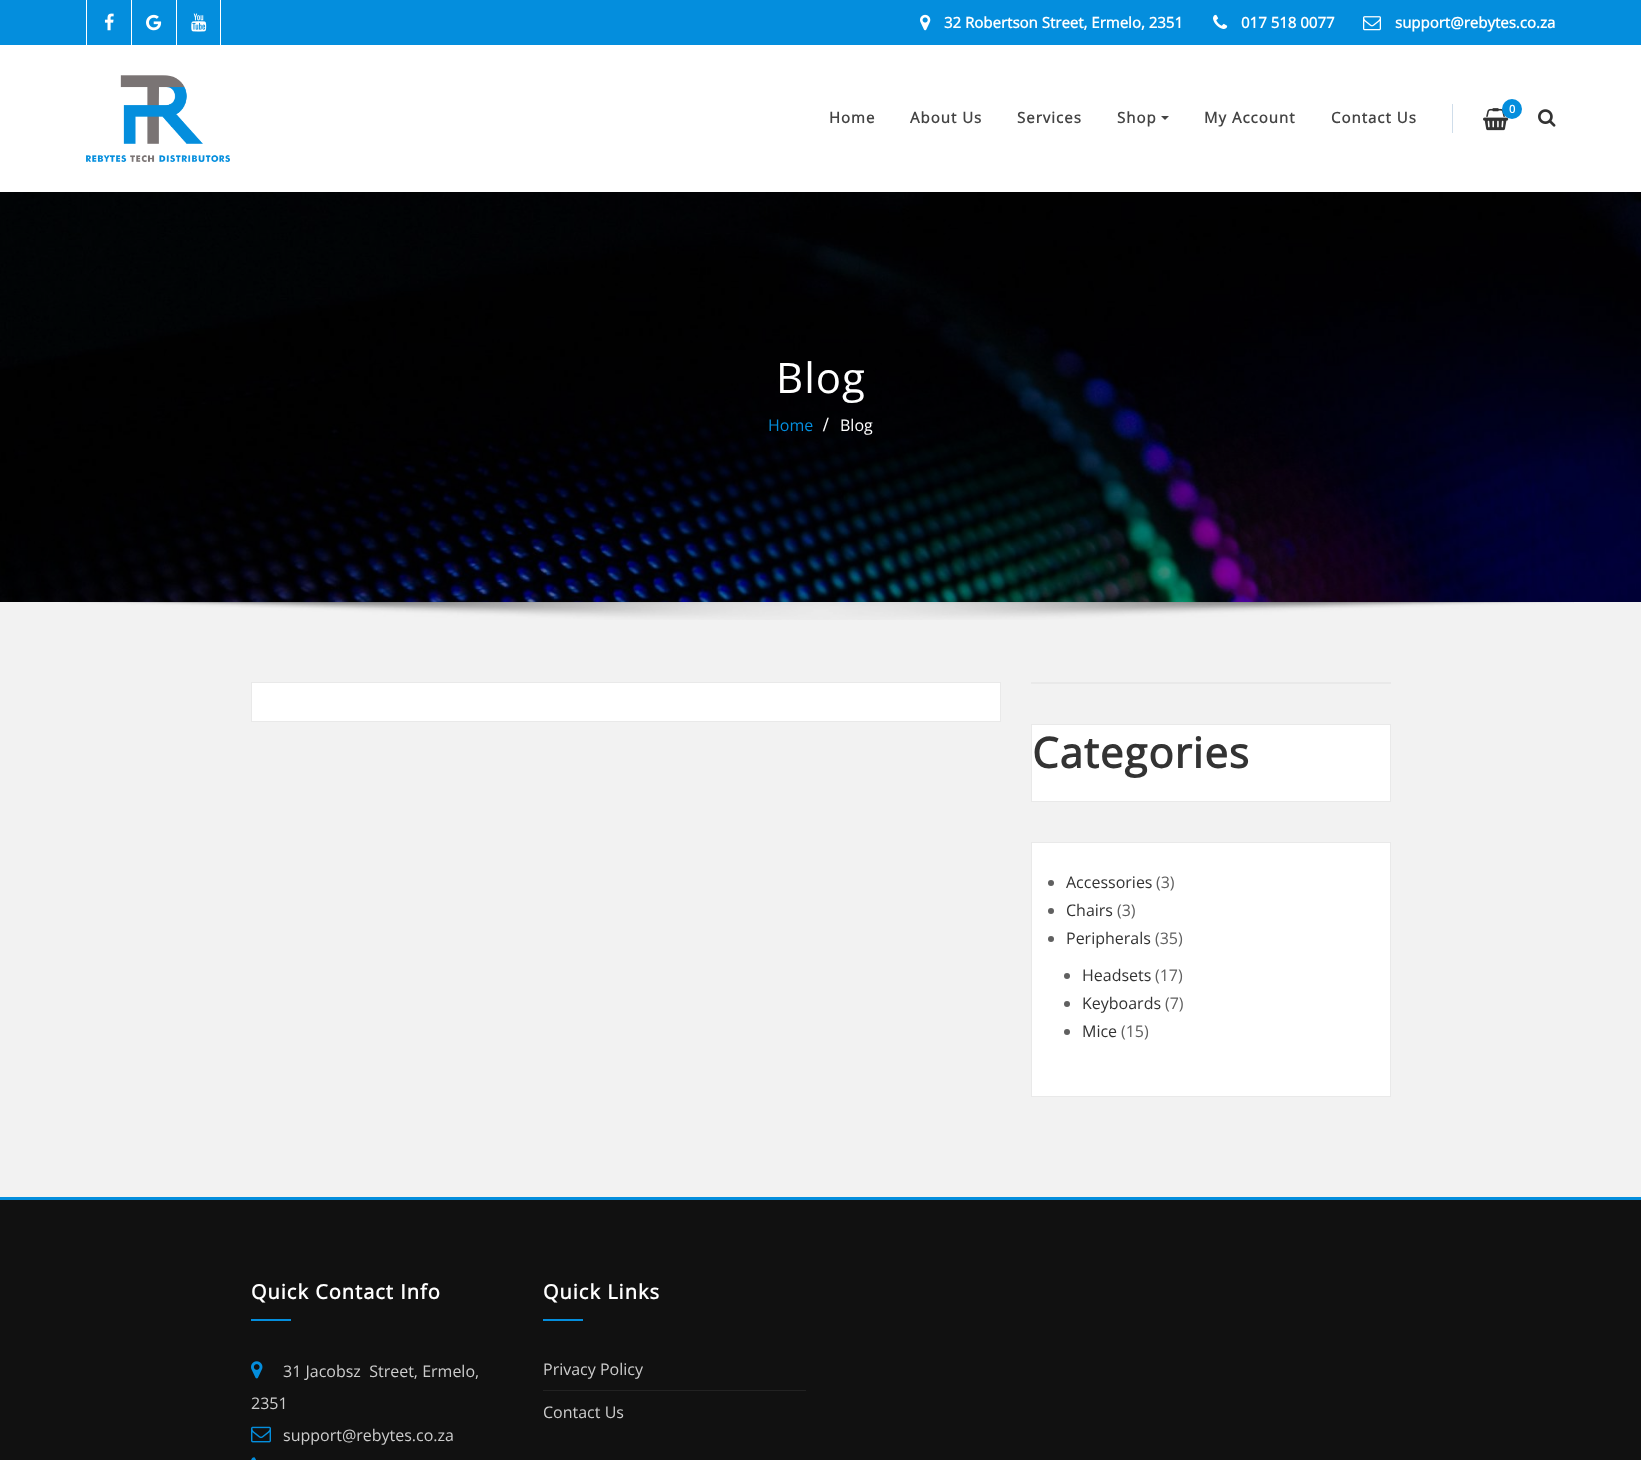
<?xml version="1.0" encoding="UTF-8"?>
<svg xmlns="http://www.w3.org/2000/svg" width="1641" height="1460">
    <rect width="100%" height="100%" fill="#FFFFFF"/>
    <rect x="0" y="0" width="1641" height="45" fill="#048EDD"/>
    <rect x="86" y="0" width="1" height="45" fill="#FFFFFF"/>
    <image x="104" y="13" width="10" height="18" href="img_01.png"/>
    <rect x="131" y="0" width="1" height="45" fill="#FFFFFF"/>
    <image x="146" y="14" width="16" height="17" href="img_02.png"/>
    <rect x="220" y="0" width="1" height="45" fill="#FFFFFF"/>
    <rect x="176" y="0" width="1" height="45" fill="#FFFFFF"/>
    <image x="191" y="13" width="16" height="19" href="img_03.png"/>
    <image x="920" y="14" width="11" height="17" href="img_04.png"/>
    <text x="944" y="28" font-family="Open Sans" font-size="15" font-weight="700" fill="#FFFFFF">32 Robertson Street, Ermelo, 2351</text>
    <image x="1213" y="14" width="15" height="15" href="img_05.png"/>
    <text x="1241" y="28" font-family="Open Sans" font-size="15" font-weight="700" fill="#FFFFFF">017 518 0077</text>
    <image x="1363" y="16" width="18" height="15" href="img_06.png"/>
    <text x="1395" y="28" font-family="Open Sans" font-size="15" font-weight="700" fill="#FFFFFF">support@rebytes.co.za</text>
    <image x="86" y="75" width="144" height="87" href="img_07.png"/>
    <rect x="1452" y="104" width="1" height="29" fill="#CFDDEA"/>
    <image x="1483" y="108" width="26" height="23" href="img_08.png"/>
    <circle cx="1512" cy="109" r="10" fill="#048EDD"/>
    <text x="1509" y="113" font-family="Open Sans" font-size="11" font-weight="700" fill="#FFFFFF">0</text>
    <image x="1538" y="109" width="18" height="18" href="img_09.png"/>
    <text x="829" y="123" font-family="Open Sans" font-size="15" font-weight="700" letter-spacing="1" fill="#444444">Home</text>
    <text x="910" y="123" font-family="Open Sans" font-size="15" font-weight="700" letter-spacing="1" fill="#444444">About Us</text>
    <text x="1017" y="123" font-family="Open Sans" font-size="15" font-weight="700" letter-spacing="1" fill="#444444">Services</text>
    <text x="1117" y="123" font-family="Open Sans" font-size="15" font-weight="700" letter-spacing="1" fill="#444444">Shop</text>
    <path d="M 1161 116 H 1169 L 1165 120 Z" fill="#444444"/>
    <text x="1204" y="123" font-family="Open Sans" font-size="15" font-weight="700" letter-spacing="1" fill="#444444">My Account</text>
    <text x="1331" y="123" font-family="Open Sans" font-size="15" font-weight="700" letter-spacing="1" fill="#444444">Contact Us</text>
    <image x="0" y="192" width="1641" height="410" href="img_10.png"/>
    <text x="776" y="393" font-family="Open Sans" font-size="42" letter-spacing="1" fill="#FFFFFF">Blog</text>
    <text x="768" y="431" font-family="Open Sans" font-size="16" fill="#048EDD">Home</text>
    <text x="823" y="431" font-family="Liberation Serif" font-size="20" font-weight="700" letter-spacing="2" fill="#FFFFFF">/</text>
    <text x="840" y="431" font-family="Open Sans" font-size="16" fill="#FFFFFF">Blog</text>
    <rect x="0" y="602" width="1641" height="595" fill="#F2F2F2"/>
    <image x="69" y="602" width="1505" height="18" href="img_11.png"/>
    <rect x="251.5" y="682.5" width="749" height="39" fill="#FFFFFF" stroke="#E9E9E9"/>
    <rect x="1031" y="682" width="360" height="2" fill="#E9E9E9"/>
    <rect x="1031.5" y="724.5" width="359" height="77" fill="#FFFFFF" stroke="#E9E9E9"/>
    <text x="1032" y="768" font-family="Open Sans" font-size="42" font-weight="700" letter-spacing="1" fill="#333333">Categories</text>
    <rect x="1031.5" y="842.5" width="359" height="254" fill="#FFFFFF" stroke="#E9E9E9"/>
    <circle cx="1051" cy="883" r="3" fill="#606060"/>
    <text x="1066" y="888" font-family="Open Sans" font-size="16" fill="#333333">Accessories</text>
    <text x="1156" y="888" font-family="Open Sans" font-size="16" fill="#606060">(3)</text>
    <circle cx="1051" cy="911" r="3" fill="#606060"/>
    <text x="1066" y="916" font-family="Open Sans" font-size="16" fill="#333333">Chairs</text>
    <text x="1117" y="916" font-family="Open Sans" font-size="16" fill="#606060">(3)</text>
    <circle cx="1051" cy="939" r="3" fill="#606060"/>
    <text x="1066" y="944" font-family="Open Sans" font-size="16" fill="#333333">Peripherals</text>
    <text x="1155" y="944" font-family="Open Sans" font-size="16" fill="#606060">(35)</text>
    <circle cx="1067" cy="976" r="3" fill="#606060"/>
    <text x="1082" y="981" font-family="Open Sans" font-size="16" fill="#333333">Headsets</text>
    <text x="1155" y="981" font-family="Open Sans" font-size="16" fill="#606060">(17)</text>
    <circle cx="1067" cy="1004" r="3" fill="#606060"/>
    <text x="1082" y="1009" font-family="Open Sans" font-size="16" fill="#333333">Keyboards</text>
    <text x="1165" y="1009" font-family="Open Sans" font-size="16" fill="#606060">(7)</text>
    <circle cx="1067" cy="1032" r="3" fill="#606060"/>
    <text x="1082" y="1037" font-family="Open Sans" font-size="16" fill="#333333">Mice</text>
    <text x="1121" y="1037" font-family="Open Sans" font-size="16" fill="#606060">(15)</text>
    <rect x="0" y="1200" width="1641" height="260" fill="#111111"/>
    <rect x="0" y="1197" width="1641" height="3" fill="#048EDD"/>
    <text x="251" y="1299" font-family="Open Sans" font-size="20" font-weight="700" letter-spacing="1" fill="#FFFFFF">Quick Contact Info</text>
    <rect x="251" y="1319" width="40" height="2" fill="#048EDD"/>
    <image x="251" y="1361" width="12" height="18" href="img_12.png"/>
    <text x="283" y="1377" font-family="Open Sans" font-size="16" fill="#CCCCCC" xml:space="preserve">31 Jacobsz  Street, Ermelo,</text>
    <text x="251" y="1409" font-family="Open Sans" font-size="16" fill="#CCCCCC">2351</text>
    <image x="251" y="1426" width="20" height="17" href="img_13.png"/>
    <text x="283" y="1441" font-family="Open Sans" font-size="16" fill="#CCCCCC">support@rebytes.co.za</text>
    <image x="251" y="1457" width="5" height="3" href="img_14.png"/>
    <text x="543" y="1299" font-family="Open Sans" font-size="20" font-weight="700" letter-spacing="1" fill="#FFFFFF">Quick Links</text>
    <rect x="543" y="1319" width="40" height="2" fill="#048EDD"/>
    <rect x="543" y="1390" width="263" height="1" fill="#222222"/>
    <text x="543" y="1375" font-family="Open Sans" font-size="16" fill="#CCCCCC">Privacy Policy</text>
    <text x="543" y="1418" font-family="Open Sans" font-size="16" fill="#CCCCCC">Contact Us</text>
</svg>
